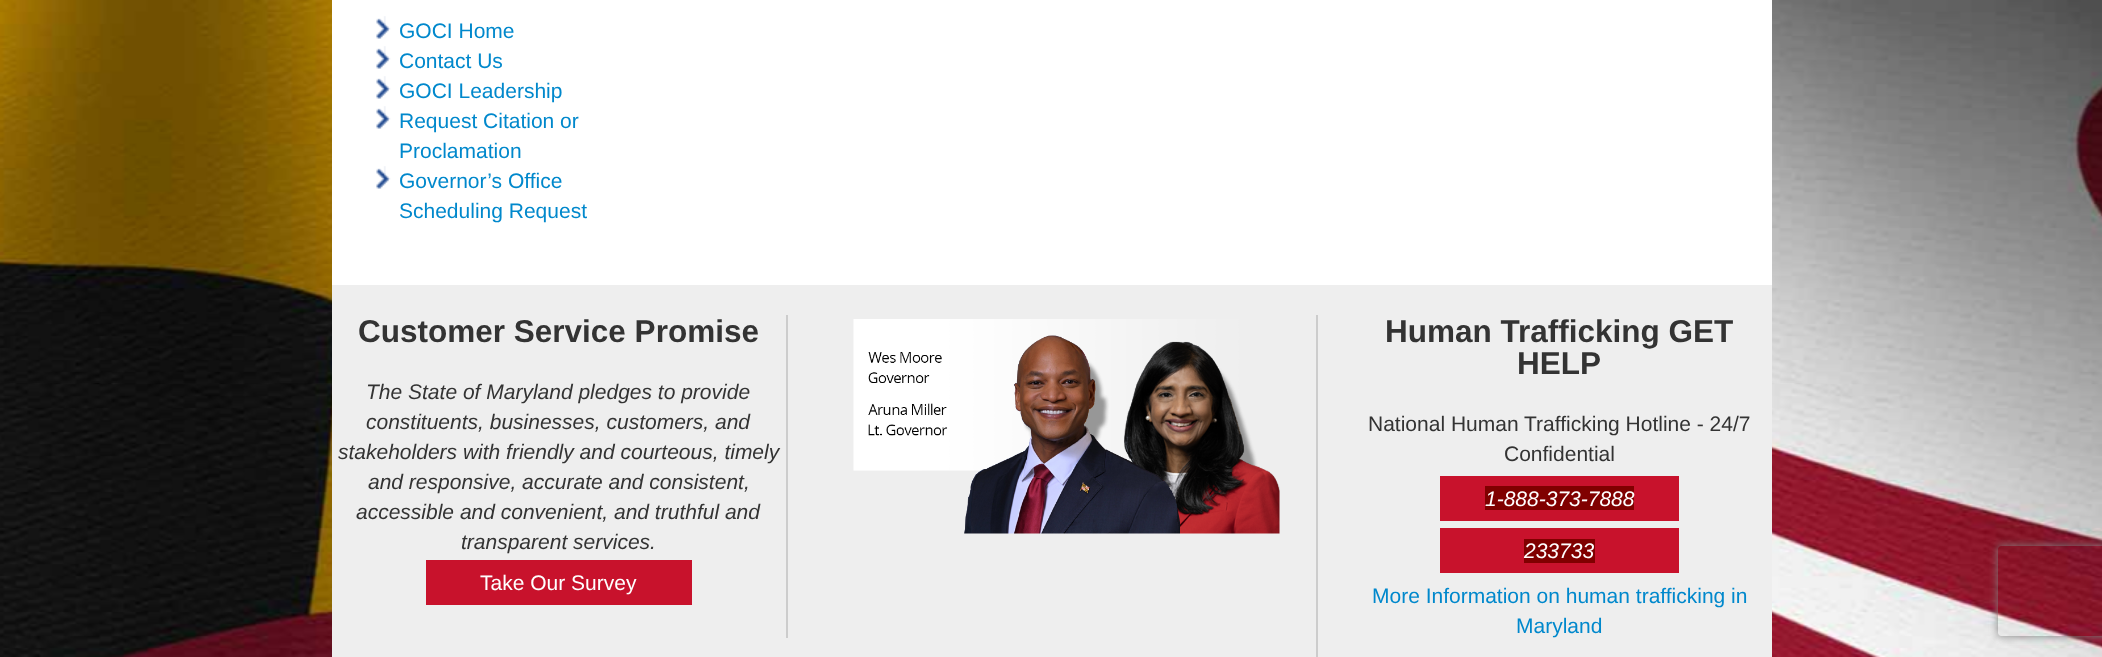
<?xml version="1.0" encoding="UTF-8"?>
<svg xmlns="http://www.w3.org/2000/svg" width="2102" height="657">
    <defs>
        <clipPath id="clip1"><path d="M 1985 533 H 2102 V 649 H 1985 Z M 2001 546 H 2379 C 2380.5 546 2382 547.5 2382 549 V 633 C 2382 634.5 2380.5 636 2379 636 H 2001 C 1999.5 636 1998 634.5 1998 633 V 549 C 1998 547.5 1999.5 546 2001 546 Z" clip-rule="evenodd"/></clipPath>
        <filter id="blur1" x="-50%" y="-200%" width="200%" height="500%"><feGaussianBlur stdDeviation="4"/></filter>
    </defs>
    <rect width="100%" height="100%" fill="#FFFFFF"/>
    <image x="0" y="0" width="2102" height="657" href="img_01.png"/>
    <rect x="332" y="0" width="1440" height="285" fill="#FFFFFF"/>
    <image x="376" y="16" width="15" height="23" href="img_02.png"/>
    <text x="399" y="38" font-family="Liberation Sans" font-size="21" fill="#0088CC">GOCI Home</text>
    <image x="376" y="46" width="15" height="23" href="img_02.png"/>
    <text x="399" y="68" font-family="Liberation Sans" font-size="21" fill="#0088CC">Contact Us</text>
    <image x="376" y="76" width="15" height="23" href="img_02.png"/>
    <text x="399" y="98" font-family="Liberation Sans" font-size="21" fill="#0088CC">GOCI Leadership</text>
    <image x="376" y="106" width="15" height="23" href="img_02.png"/>
    <text font-family="Liberation Sans" font-size="21" fill="#0088CC">
        <tspan x="399" y="128">Request Citation or</tspan>
        <tspan x="399" y="158">Proclamation</tspan>
    </text>
    <image x="376" y="166" width="15" height="23" href="img_02.png"/>
    <text font-family="Liberation Sans" font-size="21" fill="#0088CC">
        <tspan x="399" y="188">Governor’s Office</tspan>
        <tspan x="399" y="218">Scheduling Request</tspan>
    </text>
    <rect x="332" y="285" width="1440" height="372" fill="#EEEEEE"/>
    <rect x="786" y="315" width="2" height="323" fill="#CCCCCC"/>
    <text x="358" y="342" font-family="Liberation Sans" font-size="31.5" font-weight="700" fill="#333333">Customer Service Promise</text>
    <text font-family="Liberation Sans" font-size="21" font-style="italic" fill="#333333">
        <tspan x="366" y="399">The State of Maryland pledges to provide</tspan>
        <tspan x="366" y="429">constituents, businesses, customers, and</tspan>
    </text>
    <text x="338" y="459" font-family="Liberation Sans" font-size="21" font-style="italic" fill="#333333">stakeholders with friendly and courteous, timely</text>
    <text x="368" y="489" font-family="Liberation Sans" font-size="21" font-style="italic" fill="#333333">and responsive, accurate and consistent,</text>
    <text x="356" y="519" font-family="Liberation Sans" font-size="21" font-style="italic" fill="#333333">accessible and convenient, and truthful and</text>
    <text x="461" y="549" font-family="Liberation Sans" font-size="21" font-style="italic" fill="#333333">transparent services.</text>
    <rect x="426" y="560" width="266" height="45" fill="#C8122C"/>
    <text x="480" y="590" font-family="Liberation Sans" font-size="21" fill="#FFFFFF">Take Our Survey</text>
    <image x="853" y="319" width="427" height="215" href="img_03.png"/>
    <rect x="1316" y="315" width="2" height="342" fill="#CCCCCC"/>
    <text x="1385" y="342" font-family="Liberation Sans" font-size="31.5" font-weight="700" fill="#333333">Human Trafficking GET</text>
    <text x="1517" y="374" font-family="Liberation Sans" font-size="31.5" font-weight="700" fill="#333333">HELP</text>
    <text x="1368" y="431" font-family="Liberation Sans" font-size="21" fill="#333333">National Human Trafficking Hotline - 24/7</text>
    <text x="1504" y="461" font-family="Liberation Sans" font-size="21" fill="#333333">Confidential</text>
    <rect x="1440" y="476" width="239" height="45" fill="#C8122C"/>
    <rect x="1485" y="486" width="149" height="24" fill="#800000"/>
    <text x="1485" y="506" font-family="Liberation Sans" font-size="21" font-style="italic" fill="#FFFFFF">1-888-373-7888</text>
    <rect x="1440" y="528" width="239" height="45" fill="#C8122C"/>
    <rect x="1524" y="539" width="71" height="24" fill="#800000"/>
    <text x="1524" y="558" font-family="Liberation Sans" font-size="21" font-style="italic" fill="#FFFFFF">233733</text>
    <text x="1372" y="603" font-family="Liberation Sans" font-size="21" fill="#0088CC">More Information on human trafficking in</text>
    <text x="1516" y="633" font-family="Liberation Sans" font-size="21" fill="#0088CC">Maryland</text>
    <g clip-path="url(#clip1)">
        <rect x="1998" y="546" width="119" height="90" rx="3" fill="#808080" filter="url(#blur1)"/>
    </g>
</svg>
